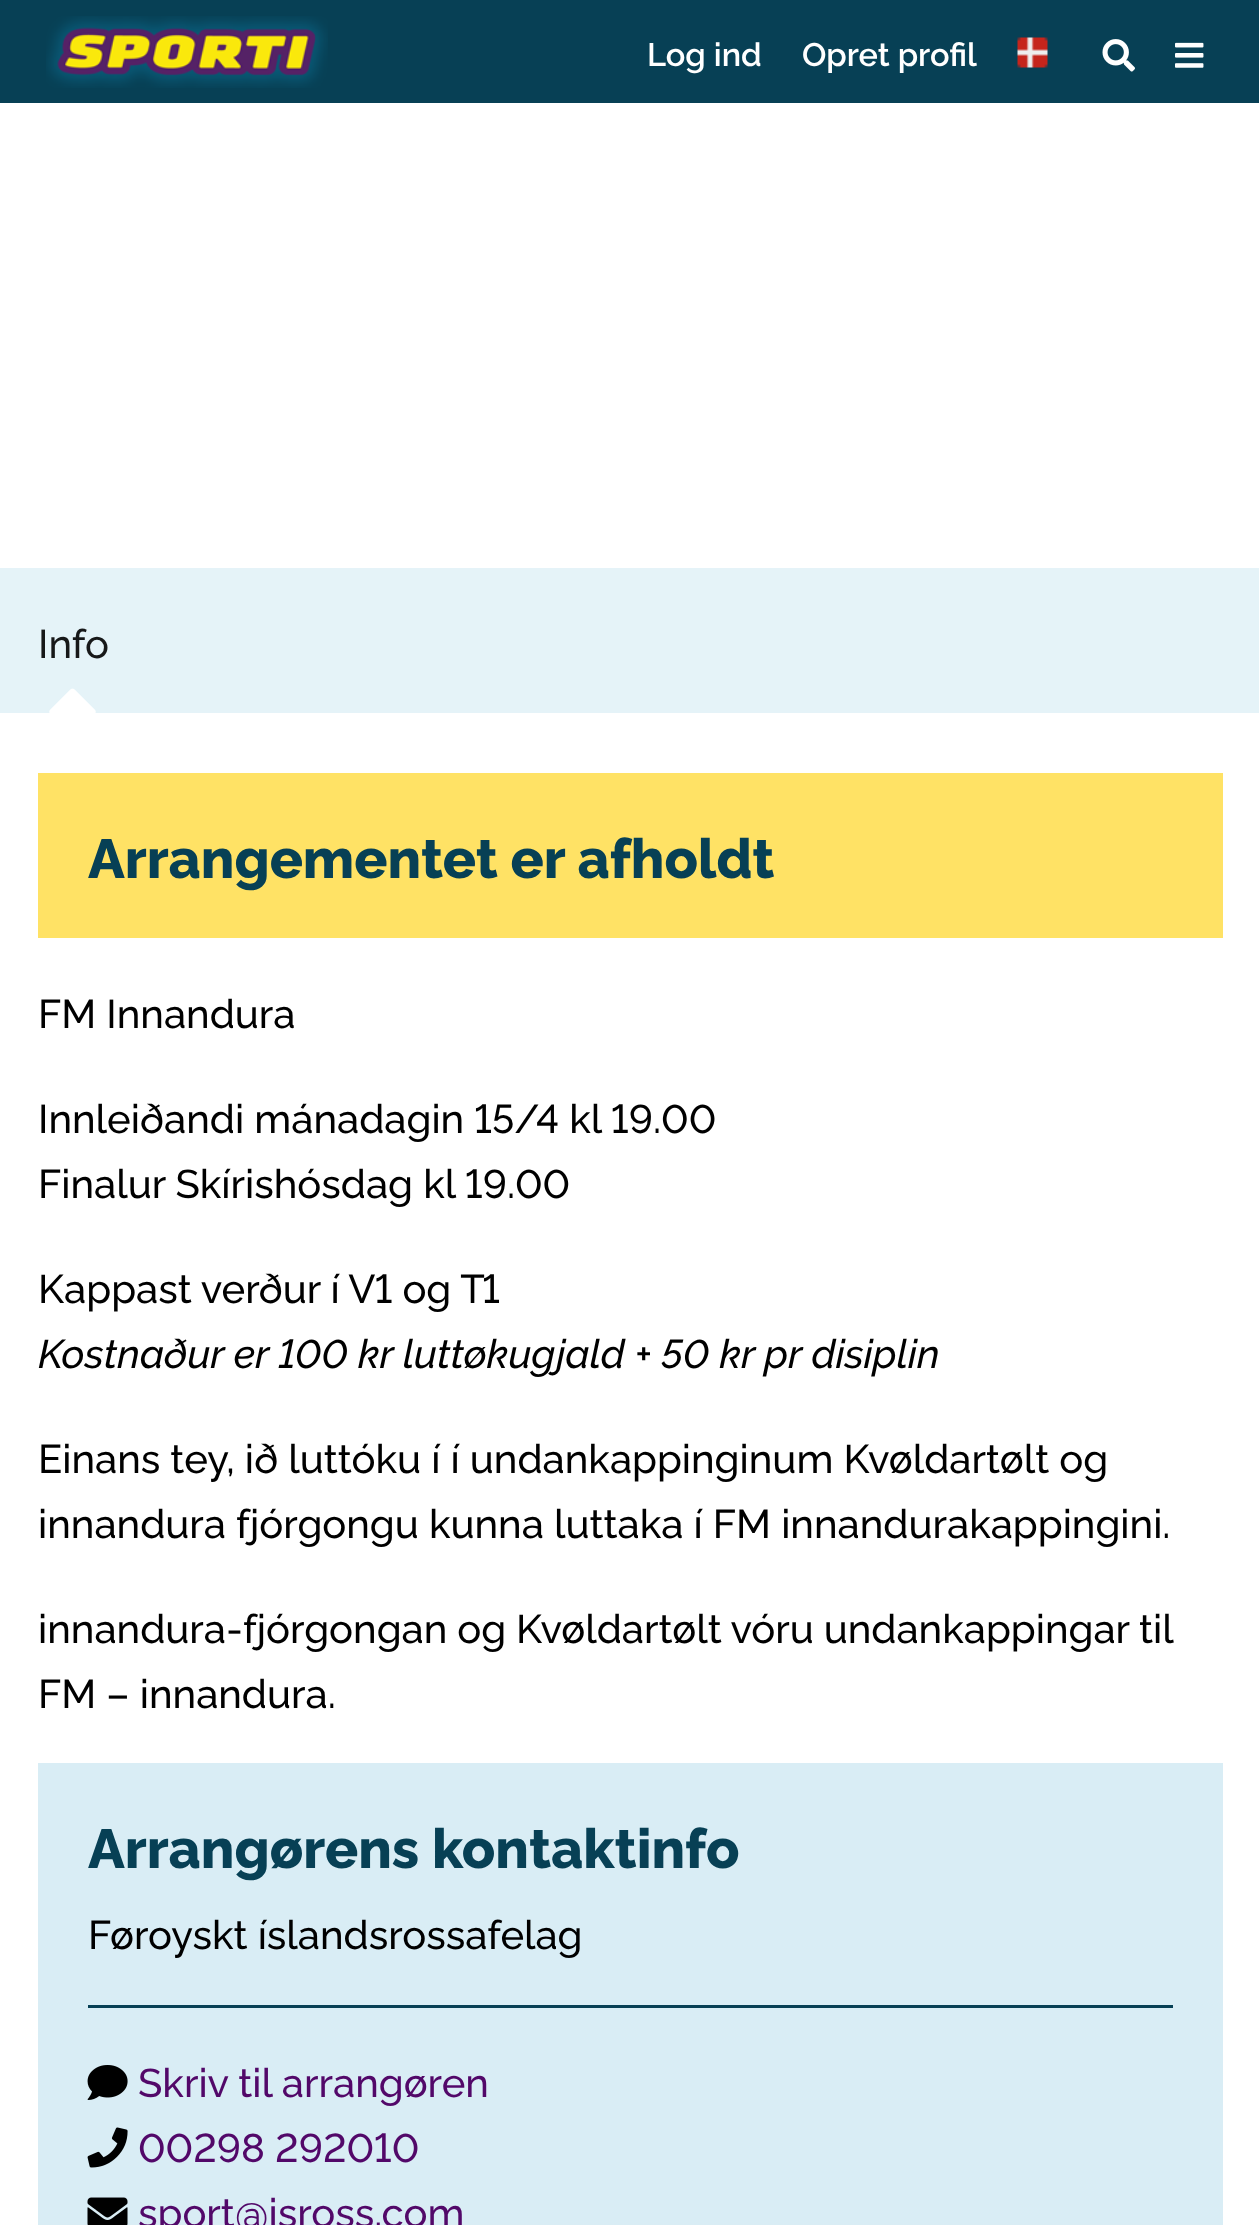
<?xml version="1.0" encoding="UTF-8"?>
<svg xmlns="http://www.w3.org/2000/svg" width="1259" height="2225">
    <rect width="100%" height="100%" fill="#FFFFFF"/>
    <rect x="0" y="0" width="1259" height="103" fill="#074055"/>
    <image x="46" y="16" width="282" height="72" href="img_01.png"/>
    <text x="647" y="66" font-family="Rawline" font-size="32.5" font-weight="600" fill="#FFFFFF">Log ind</text>
    <text x="802" y="66" font-family="Rawline" font-size="32.5" font-weight="600" fill="#FFFFFF">Opret profil</text>
    <image x="1017" y="37" width="31" height="31" href="img_02.png"/>
    <image x="1102" y="39" width="33" height="33" href="img_03.png"/>
    <image x="1175" y="42" width="29" height="26" href="img_04.png"/>
    <rect x="0" y="568" width="1259" height="145" fill="#E5F3F8"/>
    <text x="38" y="658" font-family="Rawline" font-size="40" font-weight="500" fill="#171819">Info</text>
    <image x="49" y="688" width="47" height="25" href="img_05.png"/>
    <rect x="38" y="773" width="1185" height="165" fill="#FFE265"/>
    <text x="88" y="878" font-family="Rawline" font-size="55" font-weight="800" fill="#074055">Arrangementet er afholdt</text>
    <text x="38" y="1028" font-family="Rawline" font-size="40" font-weight="500" fill="#000000">FM Innandura</text>
    <text font-family="Rawline" font-size="40" font-weight="500" fill="#000000">
        <tspan x="38" y="1133">Innleiðandi mánadagin 15/4 kl 19.00</tspan>
        <tspan x="38" y="1198">Finalur Skírishósdag kl 19.00</tspan>
    </text>
    <text x="38" y="1303" font-family="Rawline" font-size="40" font-weight="500" fill="#000000">Kappast verður í V1 og T1</text>
    <text x="38" y="1368" font-family="Rawline" font-size="40" font-weight="500" font-style="italic" fill="#000000">Kostnaður er 100 kr luttøkugjald + 50 kr pr disiplin</text>
    <text font-family="Rawline" font-size="40" font-weight="500" fill="#000000">
        <tspan x="38" y="1473">Einans tey, ið luttóku í í undankappinginum Kvøldartølt og</tspan>
        <tspan x="38" y="1538">innandura fjórgongu kunna luttaka í FM innandurakappingini.</tspan>
    </text>
    <text font-family="Rawline" font-size="40" font-weight="500" fill="#000000">
        <tspan x="38" y="1643" word-spacing="-0.25">innandura-fjórgongan og Kvøldartølt vóru undankappingar til</tspan>
        <tspan x="38" y="1708">FM – innandura.</tspan>
    </text>
    <rect x="38" y="1763" width="1185" height="462" fill="#D9EDF5"/>
    <text x="88" y="1868" font-family="Rawline" font-size="55" font-weight="800" fill="#074055">Arrangørens kontaktinfo</text>
    <text x="88" y="1949" font-family="Rawline" font-size="40" font-weight="500" fill="#000000">Føroyskt íslandsrossafelag</text>
    <rect x="88" y="2005" width="1085" height="3" fill="#074055"/>
    <image x="87" y="2065" width="41" height="35" href="img_06.png"/>
    <text x="138" y="2097" font-family="Rawline" font-size="40" font-weight="500" fill="#520869">Skriv til arrangøren</text>
    <image x="87" y="2127" width="41" height="41" href="img_07.png"/>
    <text x="138" y="2162" font-family="Rawline" font-size="40" font-weight="500" fill="#520869">00298 292010</text>
    <image x="87" y="2197" width="41" height="28" href="img_08.png"/>
    <text x="138" y="2227" font-family="Rawline" font-size="40" font-weight="500" fill="#520869">sport@isross.com</text>
</svg>
